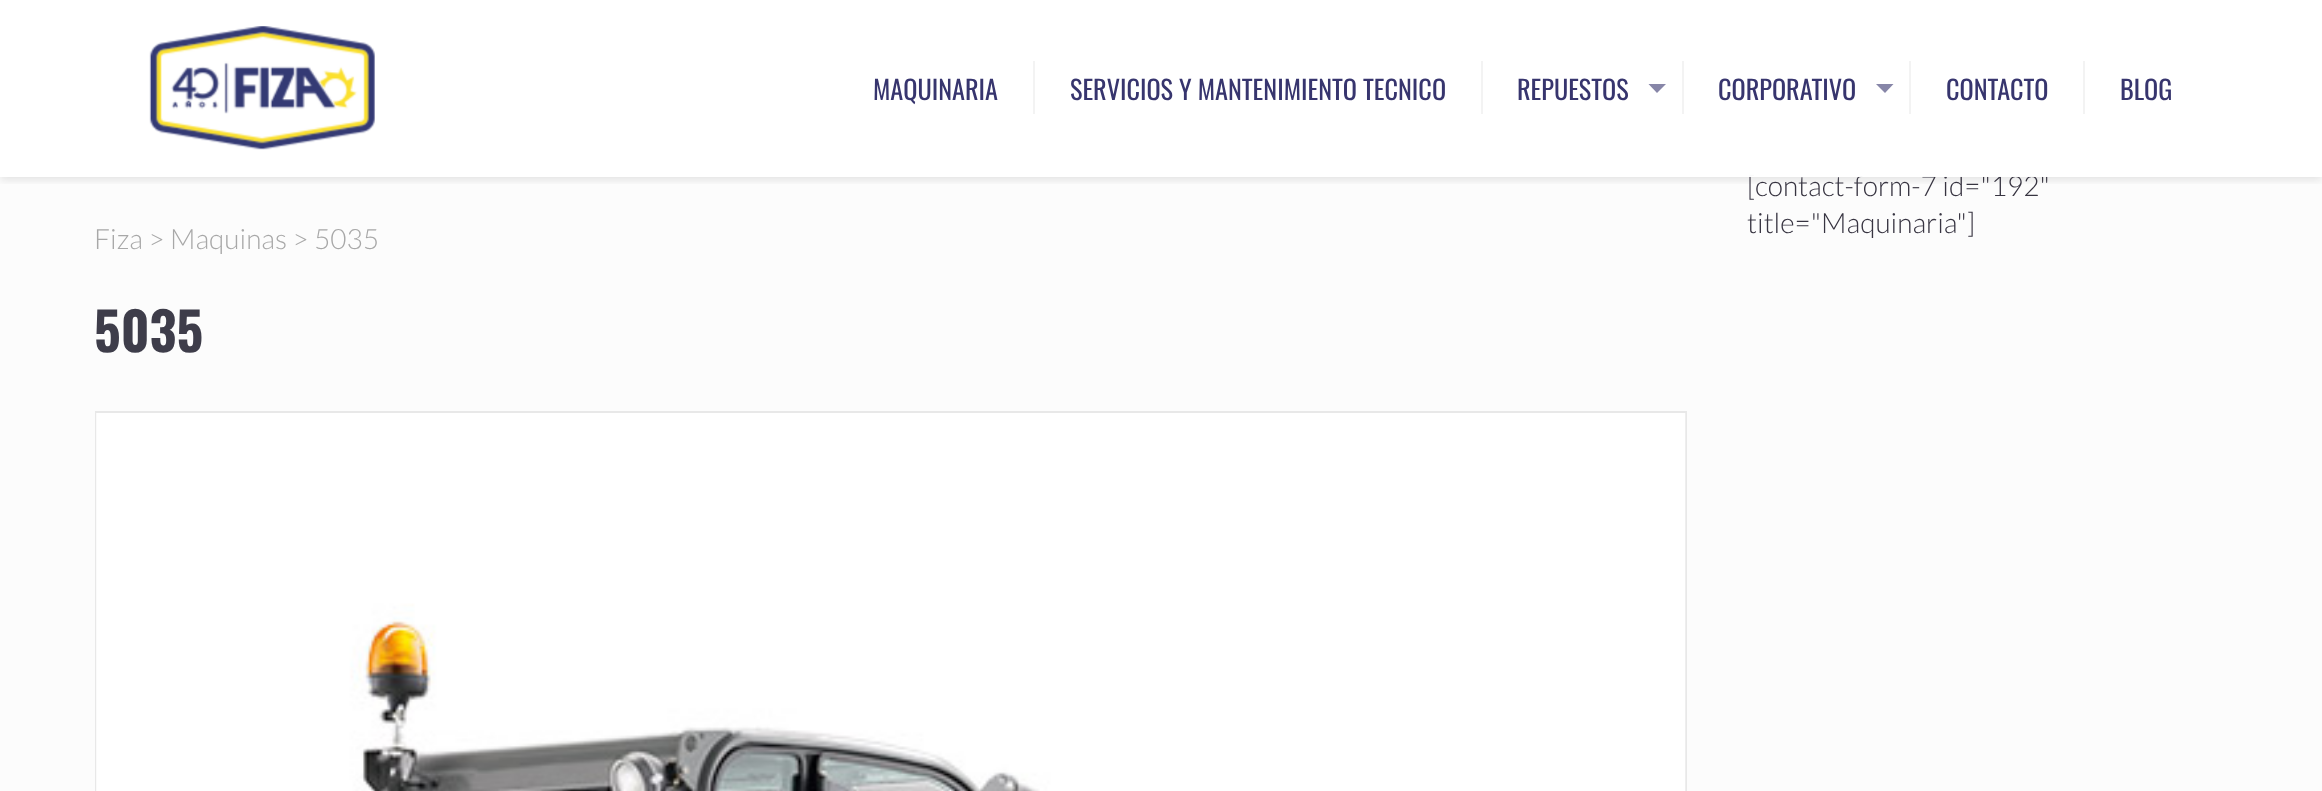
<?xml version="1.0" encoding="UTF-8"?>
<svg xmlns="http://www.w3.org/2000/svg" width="2322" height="791">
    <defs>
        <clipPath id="clip1"><rect x="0" y="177" width="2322" height="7"/></clipPath>
        <filter id="blur1" x="-50%" y="-200%" width="200%" height="500%"><feGaussianBlur stdDeviation="4.5"/></filter>
    </defs>
    <rect width="100%" height="100%" fill="#FCFCFC"/>
    <rect x="0" y="0" width="2322" height="166" fill="#FFFFFF"/>
    <g clip-path="url(#clip1)">
        <rect x="0" y="4" width="2322" height="176" fill="#000000" fill-opacity="0.1" filter="url(#blur1)"/>
    </g>
    <text x="1747" y="196" font-family="Lato" font-size="28" font-weight="300" fill="#373441">[contact-form-7 id="192"</text>
    <rect x="0" y="166" width="2322" height="11" fill="#FFFFFF" fill-opacity="0.97"/>
    <image x="149" y="26" width="226" height="124" href="img_01.png"/>
    <rect x="1033" y="61" width="2" height="53" fill="#F3F3F3"/>
    <text x="873" y="100" font-family="Oswald" font-size="26.25" fill="#37356E">MAQUINARIA</text>
    <rect x="1481" y="61" width="2" height="53" fill="#F3F3F3"/>
    <text x="1070" y="100" font-family="Oswald" font-size="26.25" fill="#37356E">SERVICIOS Y MANTENIMIENTO TECNICO</text>
    <rect x="1682" y="61" width="2" height="53" fill="#F3F3F3"/>
    <text x="1517" y="100" font-family="Oswald" font-size="26.25" fill="#37356E">REPUESTOS</text>
    <path d="M 1648.5 84 H 1666 L 1657 93 Z" fill="#8786A8"/>
    <rect x="1909" y="61" width="2" height="53" fill="#F3F3F3"/>
    <text x="1718" y="100" font-family="Oswald" font-size="26.25" fill="#37356E">CORPORATIVO</text>
    <path d="M 1876 84 H 1893.5 L 1885 93 Z" fill="#8786A8"/>
    <rect x="2083" y="61" width="2" height="53" fill="#F3F3F3"/>
    <text x="1946" y="100" font-family="Oswald" font-size="26.25" fill="#37356E">CONTACTO</text>
    <text x="2120" y="100" font-family="Oswald" font-size="26.25" fill="#37356E">BLOG</text>
    <text x="1747" y="233" font-family="Lato" font-size="28" font-weight="300" fill="#373441">title="Maquinaria"]</text>
    <text x="94" y="249" font-family="Lato" font-size="28" font-weight="300" fill="#A8A8A8">Fiza &gt; Maquinas &gt; 5035</text>
    <text x="94" y="352" font-family="Oswald" font-size="52.5" font-weight="700" fill="#3E3D4A">5035</text>
    <rect x="96" y="412" width="1590" height="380" fill="none" stroke="#E8E8E8" stroke-width="2"/>
    <image x="96" y="413" width="1590" height="378" href="img_02.png"/>
</svg>
